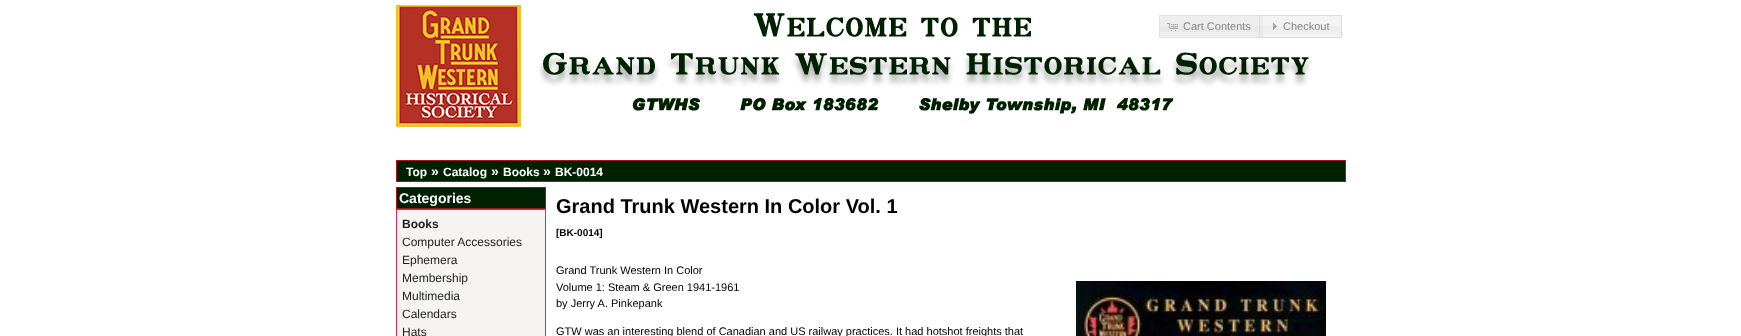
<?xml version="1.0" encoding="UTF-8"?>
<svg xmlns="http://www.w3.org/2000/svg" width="1741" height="336">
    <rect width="100%" height="100%" fill="#FFFFFF"/>
    <image x="396" y="5" width="915" height="122" href="img_01.png"/>
    <rect x="1160" y="16" width="102" height="21" fill="#EEEEEE"/>
    <rect x="1159" y="26" width="104" height="6" fill="#E9E9E9"/>
    <rect x="1159.5" y="15.5" width="103" height="22" fill="none" stroke="#E0E0E0"/>
    <image x="1167" y="23" width="11" height="8" href="img_02.png"/>
    <text x="1183" y="30" font-family="Liberation Sans" font-size="11" fill="#888888">Cart Contents</text>
    <image x="1259" y="15" width="83" height="23" href="img_03.png"/>
    <rect x="1259.5" y="15.5" width="82" height="22" fill="none" stroke="#D3D3D3" stroke-opacity="0.7"/>
    <image x="1273" y="23" width="4" height="7" href="img_04.png"/>
    <text x="1283" y="30" font-family="Liberation Sans" font-size="11" fill="#888888">Checkout</text>
    <rect x="396.5" y="160.5" width="949" height="21" fill="#002100" stroke="#A51717"/>
    <text x="406" y="176" font-family="Liberation Sans" font-size="12" font-weight="700" fill="#FFFFFF">Top</text>
    <text x="431" y="176" font-family="Liberation Sans" font-size="14" font-weight="700" fill="#FFFFFF">»</text>
    <text x="443" y="176" font-family="Liberation Sans" font-size="12" font-weight="700" fill="#FFFFFF">Catalog</text>
    <text x="491" y="176" font-family="Liberation Sans" font-size="14" font-weight="700" fill="#FFFFFF">»</text>
    <text x="503" y="176" font-family="Liberation Sans" font-size="12" font-weight="700" fill="#FFFFFF">Books</text>
    <text x="543" y="176" font-family="Liberation Sans" font-size="14" font-weight="700" fill="#FFFFFF">»</text>
    <text x="555" y="176" font-family="Liberation Sans" font-size="12" font-weight="700" fill="#FFFFFF">BK-0014</text>
    <rect x="396.5" y="187.5" width="149" height="21" fill="#002100" stroke="#A51717"/>
    <text x="399" y="203" font-family="Liberation Sans" font-size="14" font-weight="700" fill="#FFFFFF">Categories</text>
    <rect x="396.5" y="209.5" width="149" height="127" fill="#F6F3F3" stroke="#DE2A50"/>
    <text x="402" y="228" font-family="Liberation Sans" font-size="12" font-weight="700" fill="#222222">Books</text>
    <text font-family="Liberation Sans" font-size="12" fill="#222222">
        <tspan x="402" y="246">Computer Accessories</tspan>
        <tspan x="402" y="264">Ephemera</tspan>
        <tspan x="402" y="282">Membership</tspan>
        <tspan x="402" y="300">Multimedia</tspan>
        <tspan x="402" y="318">Calendars</tspan>
        <tspan x="402" y="336">Hats</tspan>
    </text>
    <text x="556" y="213" font-family="Liberation Sans" font-size="20" font-weight="700" fill="#000000">Grand Trunk Western In Color Vol. 1</text>
    <text x="556" y="236" font-family="Liberation Sans" font-size="10" font-weight="700" fill="#000000">[BK-0014]</text>
    <text font-family="Liberation Sans" font-size="11" fill="#000000">
        <tspan x="556" y="274">Grand Trunk Western In Color</tspan>
        <tspan x="556" y="291">Volume 1: Steam &amp; Green 1941-1961</tspan>
        <tspan x="556" y="307">by Jerry A. Pinkepank</tspan>
    </text>
    <image x="1076" y="281" width="250" height="55" href="img_05.png"/>
    <text x="556" y="335" font-family="Liberation Sans" font-size="11" fill="#000000">GTW was an interesting blend of Canadian and US railway practices. It had hotshot freights that</text>
</svg>
